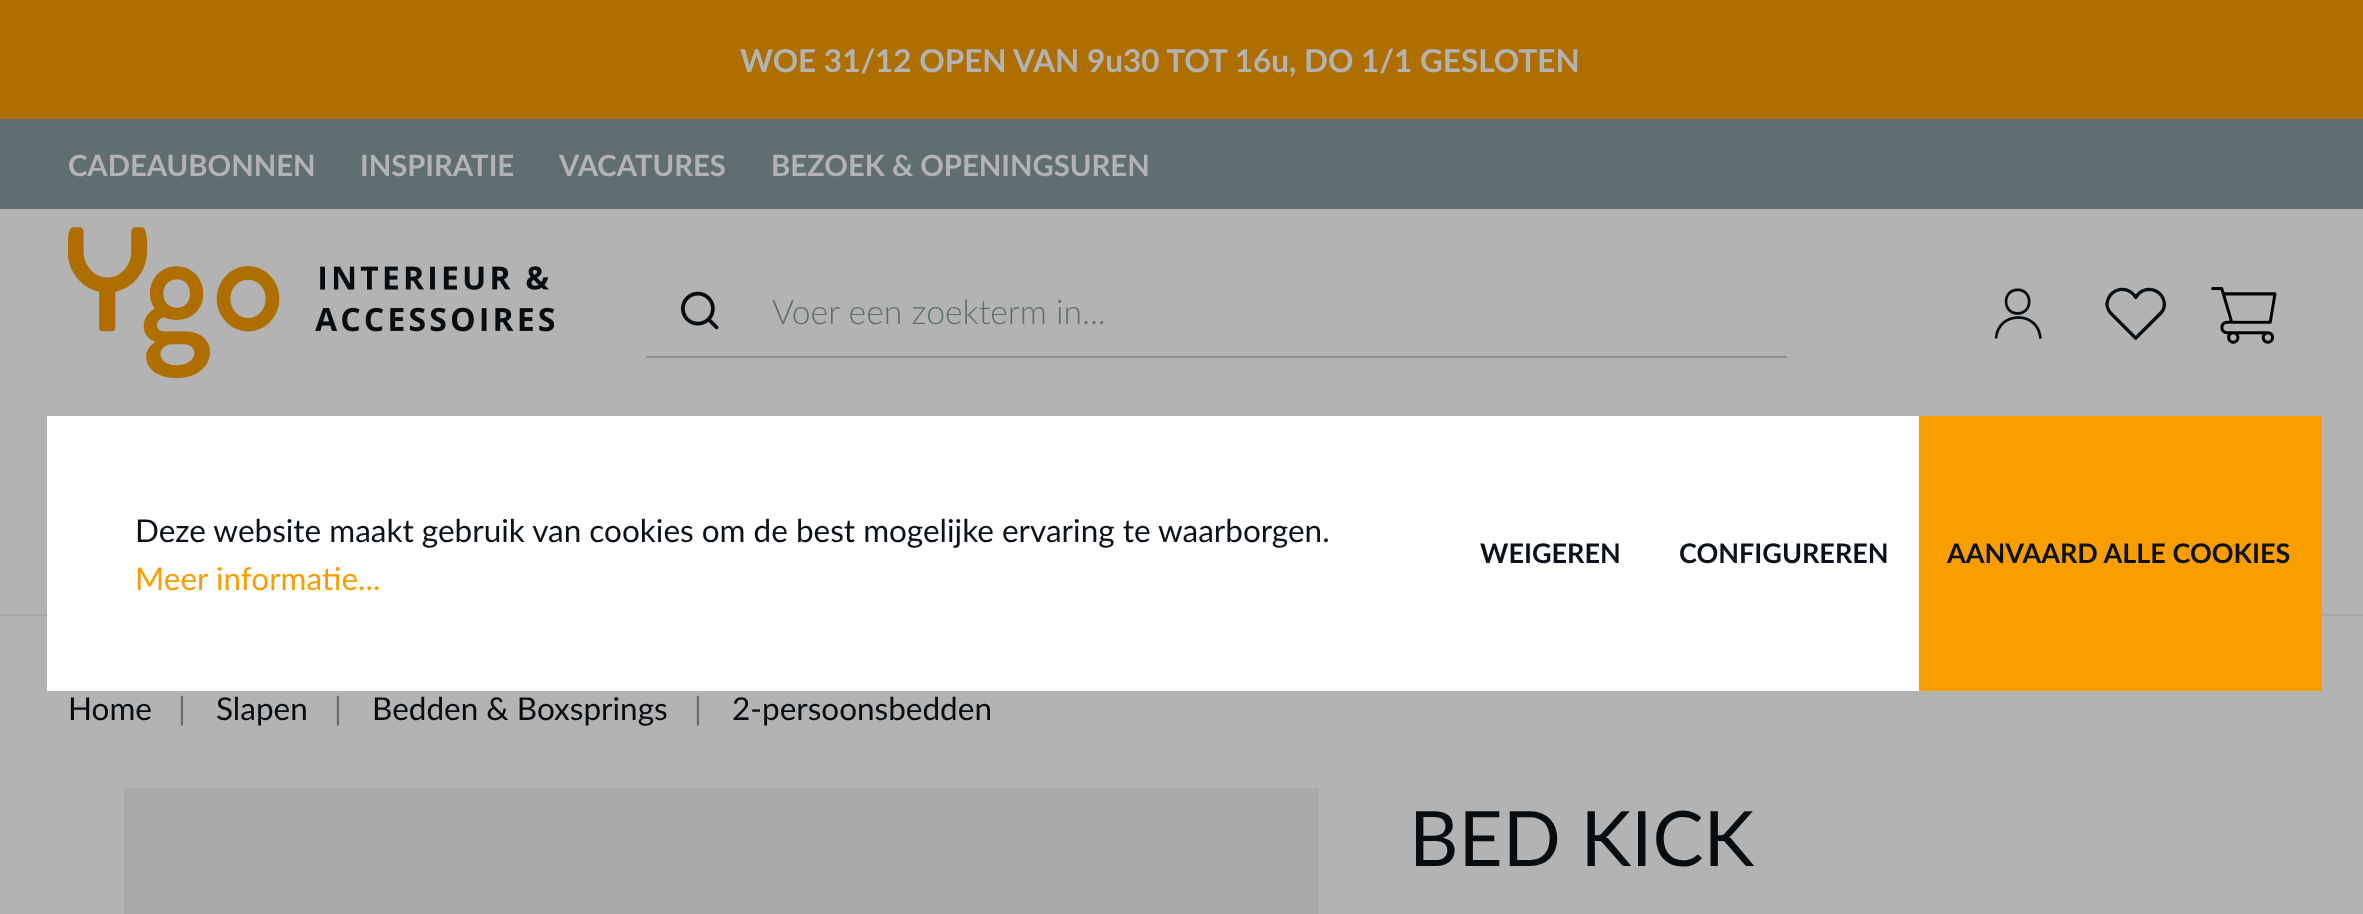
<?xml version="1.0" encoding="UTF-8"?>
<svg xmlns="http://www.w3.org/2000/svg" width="2363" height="914">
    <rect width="100%" height="100%" fill="#B3B3B3"/>
    <rect x="0" y="0" width="2363" height="119" fill="#AF6F00"/>
    <text x="740" y="72" font-family="Lato" font-size="31.5" font-weight="700" fill="#B3B3B3">WOE 31/12 OPEN VAN 9u30 TOT 16u, DO 1/1 GESLOTEN</text>
    <rect x="0" y="119" width="2363" height="90" fill="#5F6F71"/>
    <text x="68" y="176" font-family="Lato" font-size="29.25" font-weight="700" fill="#B3B3B3">CADEAUBONNEN</text>
    <text x="360" y="176" font-family="Lato" font-size="29.25" font-weight="700" fill="#B3B3B3">INSPIRATIE</text>
    <text x="559" y="176" font-family="Lato" font-size="29.25" font-weight="700" fill="#B3B3B3">VACATURES</text>
    <text x="771" y="176" font-family="Lato" font-size="29.25" font-weight="700" fill="#B3B3B3">BEZOEK &amp; OPENINGSUREN</text>
    <image x="68" y="227" width="487" height="151" href="img_01.png"/>
    <rect x="646" y="356" width="1141" height="2" fill="#899192"/>
    <image x="681" y="291" width="38" height="39" href="img_02.png"/>
    <text x="772" y="324" font-family="Lato" font-size="33.75" font-weight="300" fill="#5F6F71">Voer een zoekterm in...</text>
    <image x="1994" y="288" width="48" height="51" href="img_03.png"/>
    <image x="2105" y="287" width="62" height="53" href="img_04.png"/>
    <image x="2211" y="287" width="66" height="57" href="img_05.png"/>
    <rect x="0" y="614" width="2363" height="2" fill="#A7A7A7"/>
    <rect x="47" y="416" width="1872" height="275" fill="#FFFFFF"/>
    <text x="135" y="542" font-family="Lato" font-size="31.5" fill="#0A1118">Deze website maakt gebruik van cookies om de best mogelijke ervaring te waarborgen.</text>
    <text x="135" y="590" font-family="Lato" font-size="31.5" fill="#FA9E00">Meer informatie...</text>
    <text x="1480" y="563" font-family="Lato" font-size="27" font-weight="700" fill="#0A1118">WEIGEREN</text>
    <text x="1679" y="563" font-family="Lato" font-size="27" font-weight="700" fill="#0A1118">CONFIGUREREN</text>
    <rect x="1919" y="416" width="403" height="275" fill="#FA9E00"/>
    <text x="1947" y="563" font-family="Lato" font-size="27" font-weight="700" fill="#0A1118">AANVAARD ALLE COOKIES</text>
    <text x="68" y="720" font-family="Lato" font-size="31.5" fill="#070C11">Home</text>
    <text x="178" y="720" font-family="Lato" font-size="31.5" fill="#6B6B6B">|</text>
    <text x="216" y="720" font-family="Lato" font-size="31.5" fill="#070C11">Slapen</text>
    <text x="334" y="720" font-family="Lato" font-size="31.5" fill="#6B6B6B">|</text>
    <text x="372" y="720" font-family="Lato" font-size="31.5" fill="#070C11">Bedden &amp; Boxsprings</text>
    <text x="694" y="720" font-family="Lato" font-size="31.5" fill="#6B6B6B">|</text>
    <text x="732" y="720" font-family="Lato" font-size="31.5" fill="#070C11">2-persoonsbedden</text>
    <rect x="124" y="788" width="1195" height="126" fill="#A9A9A9"/>
    <text x="1409" y="866" font-family="Lato" font-size="76.5" fill="#070C11">BED KICK</text>
</svg>
